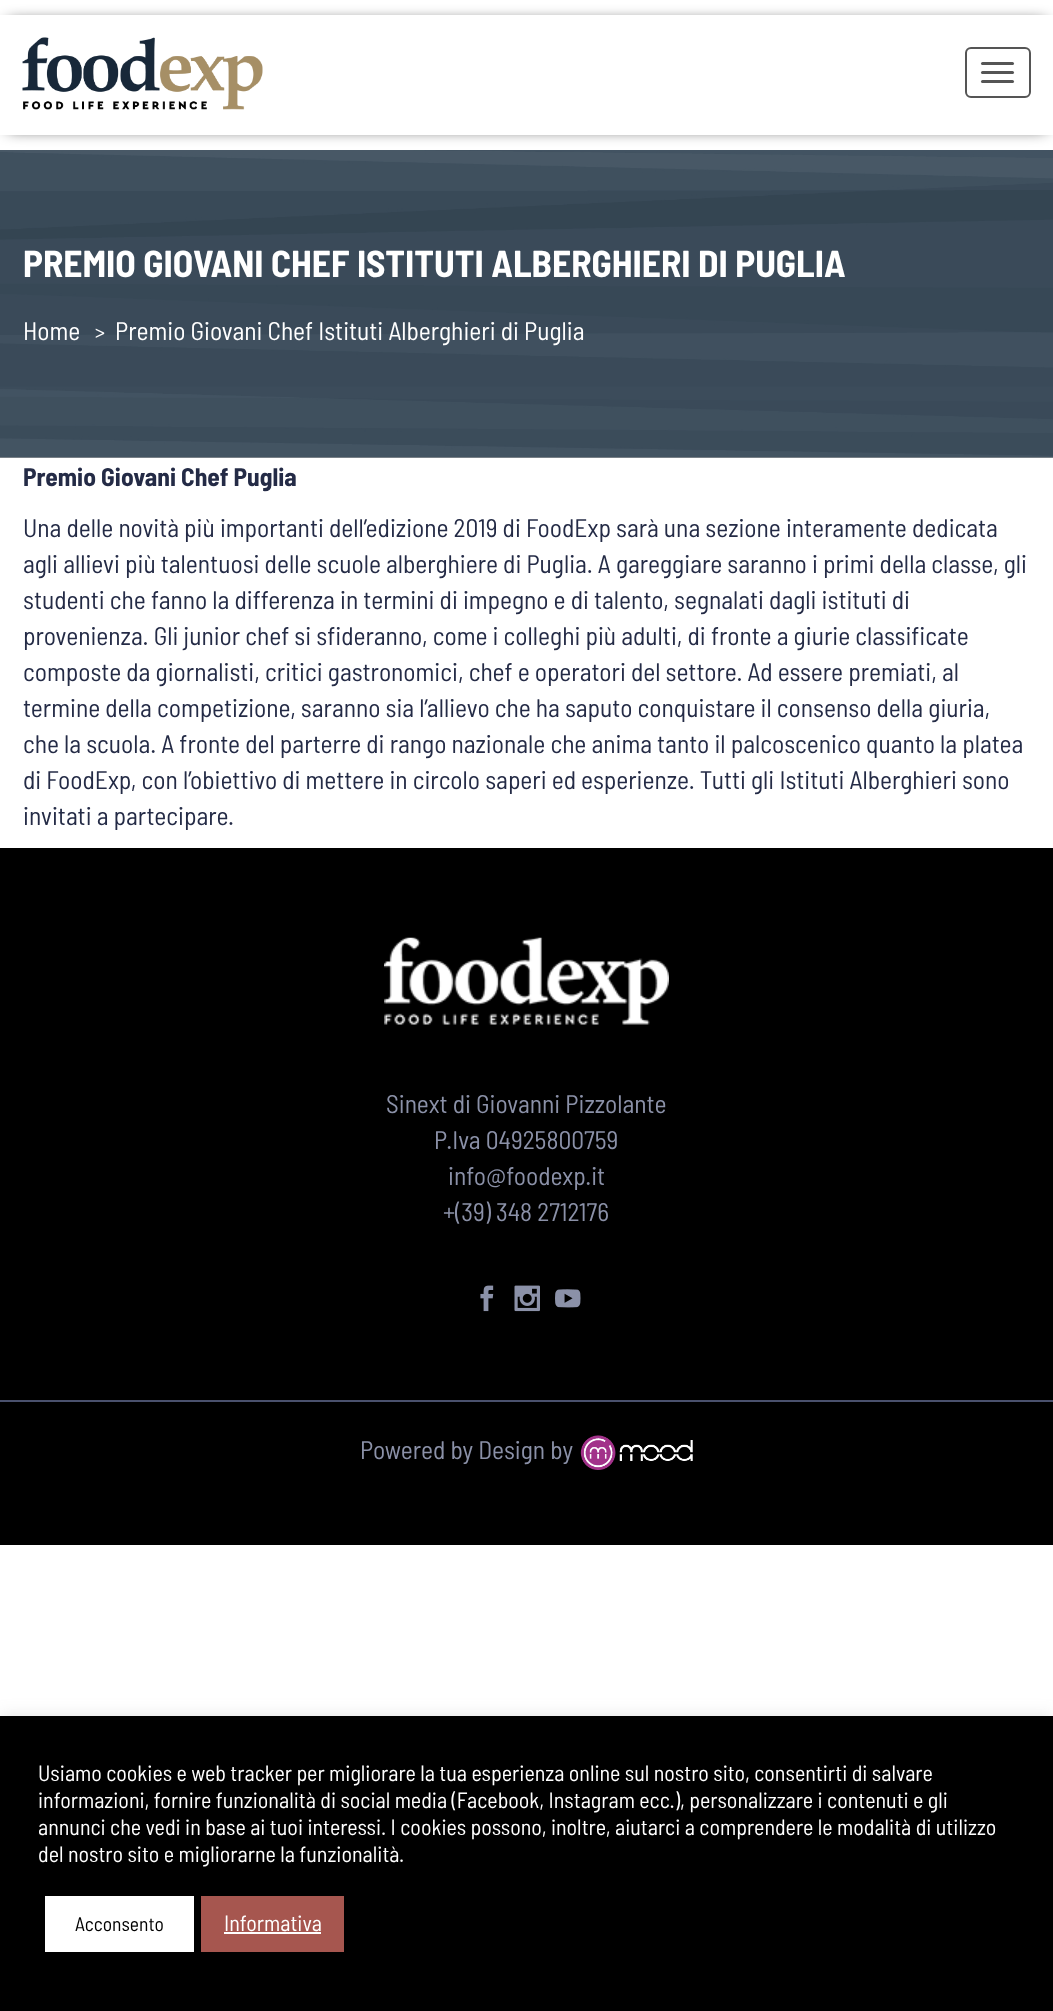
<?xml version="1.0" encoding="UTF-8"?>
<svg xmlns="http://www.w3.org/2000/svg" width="1053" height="2011">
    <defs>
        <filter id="blur1" x="-50%" y="-200%" width="200%" height="500%"><feGaussianBlur stdDeviation="8"/></filter>
        <filter id="blur2" x="-50%" y="-200%" width="200%" height="500%"><feGaussianBlur stdDeviation="7.5"/></filter>
    </defs>
    <rect width="100%" height="100%" fill="#FFFFFF"/>
    <rect x="0" y="457" width="1053" height="1" fill="#ABABAB"/>
    <image x="0" y="150" width="1053" height="308" href="img_02.png"/>
    <rect x="8" y="23" width="1038" height="105" fill="#000000" filter="url(#blur1)"/>
    <rect x="0" y="15" width="1053" height="120" fill="#FFFFFF"/>
    <image x="22" y="37" width="241" height="73" href="img_01.png"/>
    <rect x="966" y="48" width="64" height="49" rx="5" fill="none" stroke="#555555" stroke-width="2"/>
    <rect x="981" y="62" width="33" height="3" rx="1.5" fill="#555555"/>
    <rect x="981" y="71" width="33" height="3" rx="1.5" fill="#555555"/>
    <rect x="981" y="80" width="33" height="3" rx="1.5" fill="#555555"/>
    <text x="23" y="277" font-family="Barlow Semi Condensed" font-size="37.5" font-weight="700" fill="#FFFFFF">PREMIO GIOVANI CHEF ISTITUTI ALBERGHIERI DI PUGLIA</text>
    <text x="23" y="340" font-family="Barlow Semi Condensed" font-size="25.5" fill="#FFFFFF">Home</text>
    <text x="95" y="339" font-family="Barlow Semi Condensed" font-size="21" fill="#FFFFFF">&gt;</text>
    <text x="115" y="340" font-family="Barlow Semi Condensed" font-size="25.5" fill="#FFFFFF">Premio Giovani Chef Istituti Alberghieri di Puglia</text>
    <text x="23" y="486" font-family="Barlow Semi Condensed" font-size="25.5" font-weight="700" fill="#242B46">Premio Giovani Chef Puglia</text>
    <text font-family="Barlow Semi Condensed" font-size="25.5" fill="#242B46">
        <tspan x="23" y="537">Una delle novità più importanti dell’edizione 2019 di FoodExp sarà una sezione interamente dedicata</tspan>
        <tspan x="23" y="573">agli allievi più talentuosi delle scuole alberghiere di Puglia. A gareggiare saranno i primi della classe, gli</tspan>
        <tspan x="23" y="609">studenti che fanno la differenza in termini di impegno e di talento, segnalati dagli istituti di</tspan>
        <tspan x="23" y="645">provenienza. Gli junior chef si sfideranno, come i colleghi più adulti, di fronte a giurie classificate</tspan>
        <tspan x="23" y="681">composte da giornalisti, critici gastronomici, chef e operatori del settore. Ad essere premiati, al</tspan>
        <tspan x="23" y="717">termine della competizione, saranno sia l’allievo che ha saputo conquistare il consenso della giuria,</tspan>
        <tspan x="23" y="753">che la scuola. A fronte del parterre di rango nazionale che anima tanto il palcoscenico quanto la platea</tspan>
        <tspan x="23" y="789">di FoodExp, con l’obiettivo di mettere in circolo saperi ed esperienze. Tutti gli Istituti Alberghieri sono</tspan>
        <tspan x="23" y="825">invitati a partecipare.</tspan>
    </text>
    <rect x="0" y="848" width="1053" height="697" fill="#000000"/>
    <image x="384" y="937" width="285" height="88" href="img_03.png"/>
    <text x="386" y="1113" font-family="Barlow Semi Condensed" font-size="25.5" fill="#8B91A8">Sinext di Giovanni Pizzolante</text>
    <text x="434" y="1149" font-family="Barlow Semi Condensed" font-size="25.5" fill="#8B91A8">P.Iva 04925800759</text>
    <text x="448" y="1185" font-family="Barlow Semi Condensed" font-size="25.5" fill="#8B91A8">info@foodexp.it</text>
    <text x="443" y="1221" font-family="Barlow Semi Condensed" font-size="25.5" fill="#8B91A8">+(39) 348 2712176</text>
    <image x="480" y="1285" width="14" height="27" href="img_04.png"/>
    <image x="514" y="1285" width="26" height="27" href="img_05.png"/>
    <image x="555" y="1289" width="26" height="19" href="img_06.png"/>
    <rect x="0" y="1400" width="1053" height="2" fill="#4A516D"/>
    <text x="360" y="1459" font-family="Barlow Semi Condensed" font-size="25.5" fill="#8B91A8">Powered by Design by</text>
    <image x="580" y="1435" width="113" height="35" href="img_07.png"/>
    <rect x="0" y="1715" width="1053" height="295" fill="#ACABAB" fill-opacity="0.3" filter="url(#blur2)"/>
    <rect x="0" y="1716" width="1053" height="295" fill="#000000"/>
    <text font-family="Barlow Semi Condensed" font-size="22" fill="#FFFFFF">
        <tspan x="38" y="1781">Usiamo cookies e web tracker per migliorare la tua esperienza online sul nostro sito, consentirti di salvare</tspan>
        <tspan x="38" y="1808">informazioni, fornire funzionalità di social media (Facebook, Instagram ecc.), personalizzare i contenuti e gli</tspan>
        <tspan x="38" y="1835">annunci che vedi in base ai tuoi interessi. I cookies possono, inoltre, aiutarci a comprendere le modalità di utilizzo</tspan>
        <tspan x="38" y="1862">del nostro sito e migliorarne la funzionalità.</tspan>
    </text>
    <rect x="45" y="1896" width="149" height="56" fill="#FFFFFF"/>
    <text x="75" y="1931" font-family="Barlow Semi Condensed" font-size="19.5" fill="#000000">Acconsento</text>
    <rect x="201" y="1896" width="143" height="56" fill="#A6564F"/>
    <text x="224" y="1931" font-family="Barlow Semi Condensed" font-size="22" fill="#FFFFFF">Informativa</text>
    <rect x="224" y="1932" width="97" height="2" fill="#FFFFFF"/>
</svg>
